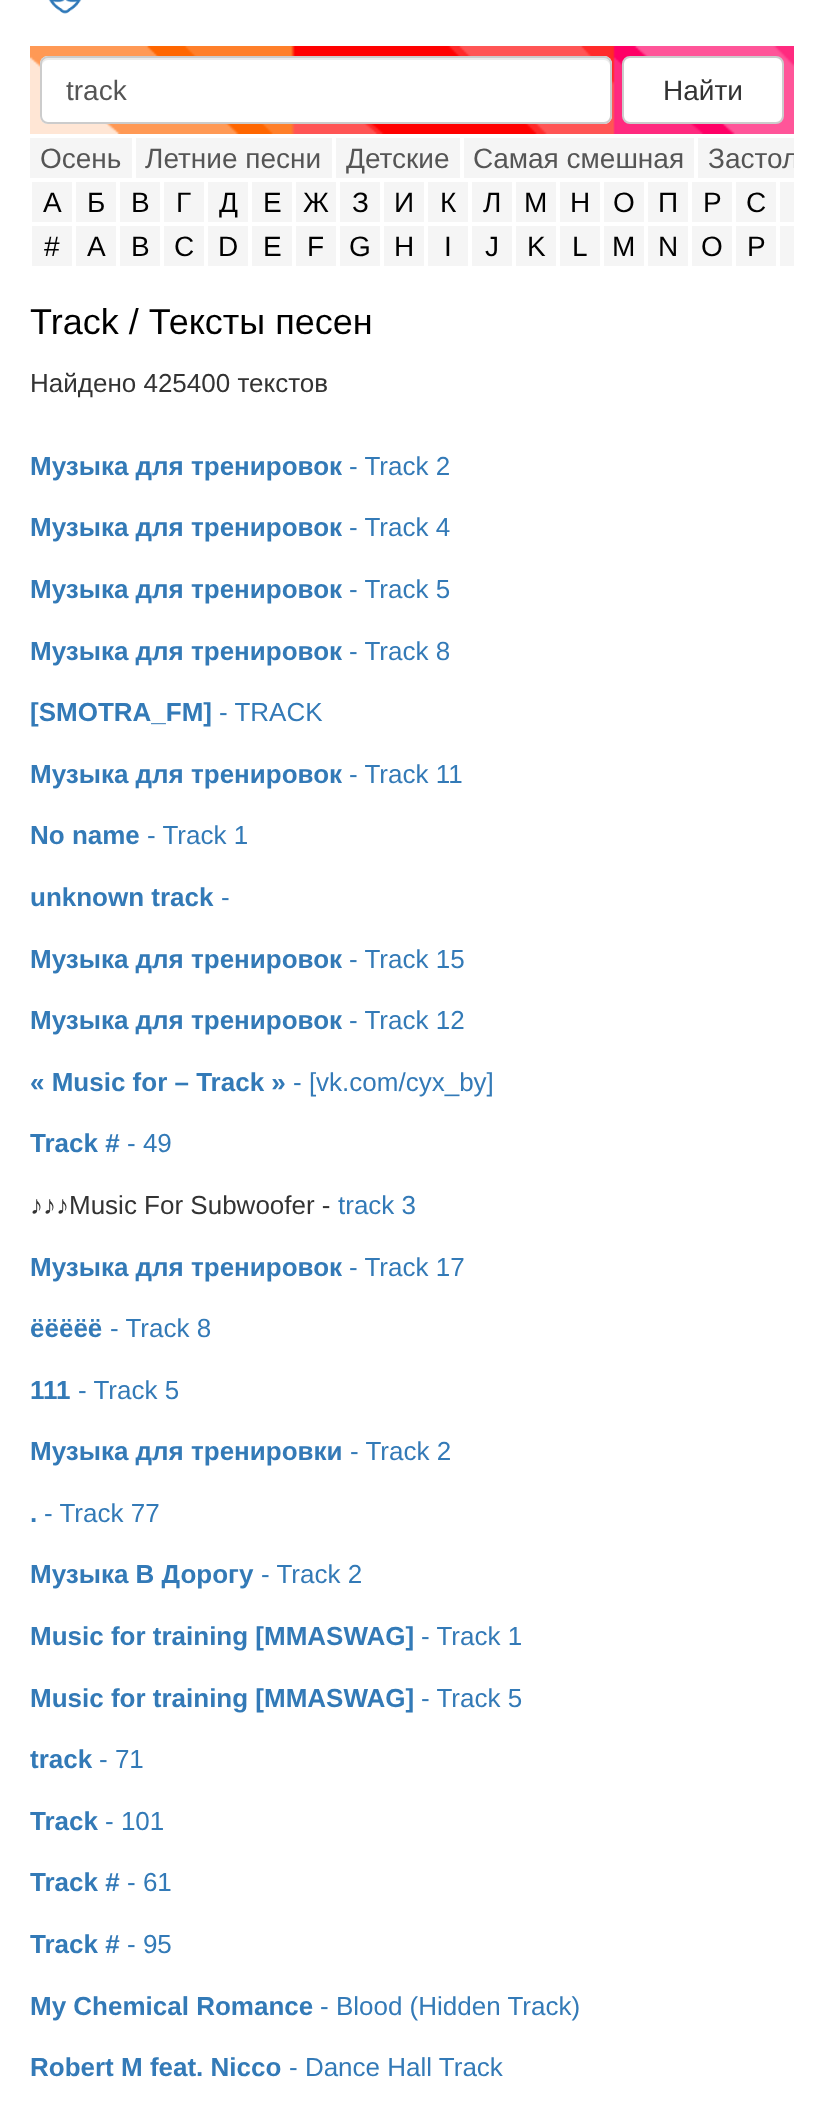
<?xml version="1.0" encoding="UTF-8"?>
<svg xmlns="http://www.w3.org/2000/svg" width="823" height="2106">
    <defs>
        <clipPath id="clip1"><rect x="30" y="134" width="764" height="44"/></clipPath>
    </defs>
    <rect width="100%" height="100%" fill="#FFFFFF"/>
    <image x="48" y="0" width="34" height="14" href="img_01.png"/>
    <image x="30" y="46" width="764" height="88" href="img_02.png"/>
    <rect x="40" y="56" width="572" height="68" rx="8" fill="#FFFFFF"/>
    <path d="M 48 60 H 604 C 607 60 610 63 610 66 V 64 C 610 61 607 58 604 58 H 48 C 45 58 42 61 42 64 V 66 C 42 63 45 60 48 60 Z" fill="#ECECEC"/>
    <rect x="41" y="57" width="570" height="66" rx="7" fill="none" stroke="#CCCCCC" stroke-width="2"/>
    <text x="66" y="100" font-family="Liberation Sans" font-size="28" fill="#555555">track</text>
    <rect x="623" y="57" width="160" height="66" rx="7" fill="#FFFFFF" stroke="#CCCCCC" stroke-width="2"/>
    <text x="663" y="100" font-family="Liberation Sans" font-size="28" fill="#333333">Найти</text>
    <rect x="30" y="138" width="102" height="40" fill="#F5F5F5"/>
    <text x="40" y="168" font-family="Liberation Sans" font-size="28" fill="#555555">Осень</text>
    <rect x="136" y="138" width="196" height="40" fill="#F5F5F5"/>
    <text x="145" y="168" font-family="Liberation Sans" font-size="28" fill="#555555">Летние песни</text>
    <rect x="336" y="138" width="124" height="40" fill="#F5F5F5"/>
    <text x="346" y="168" font-family="Liberation Sans" font-size="28" fill="#555555">Детские</text>
    <rect x="464" y="138" width="230" height="40" fill="#F5F5F5"/>
    <text x="473" y="168" font-family="Liberation Sans" font-size="28" fill="#555555">Cамая смешная</text>
    <rect x="698" y="138" width="96" height="40" fill="#F5F5F5"/>
    <g clip-path="url(#clip1)">
        <text x="708" y="168" font-family="Liberation Sans" font-size="28" fill="#555555">Застол</text>
    </g>
    <rect x="32" y="182" width="40" height="40" fill="#F5F5F5"/>
    <text x="43" y="212" font-family="Liberation Sans" font-size="28" fill="#000000">А</text>
    <rect x="76" y="182" width="40" height="40" fill="#F5F5F5"/>
    <text x="87" y="212" font-family="Liberation Sans" font-size="28" fill="#000000">Б</text>
    <rect x="120" y="182" width="40" height="40" fill="#F5F5F5"/>
    <text x="131" y="212" font-family="Liberation Sans" font-size="28" fill="#000000">В</text>
    <rect x="164" y="182" width="40" height="40" fill="#F5F5F5"/>
    <text x="176" y="212" font-family="Liberation Sans" font-size="28" fill="#000000">Г</text>
    <rect x="208" y="182" width="40" height="40" fill="#F5F5F5"/>
    <text x="219" y="212" font-family="Liberation Sans" font-size="28" fill="#000000">Д</text>
    <rect x="252" y="182" width="40" height="40" fill="#F5F5F5"/>
    <text x="263" y="212" font-family="Liberation Sans" font-size="28" fill="#000000">Е</text>
    <rect x="296" y="182" width="40" height="40" fill="#F5F5F5"/>
    <text x="303" y="212" font-family="Liberation Sans" font-size="28" fill="#000000">Ж</text>
    <rect x="340" y="182" width="40" height="40" fill="#F5F5F5"/>
    <text x="352" y="212" font-family="Liberation Sans" font-size="28" fill="#000000">З</text>
    <rect x="384" y="182" width="40" height="40" fill="#F5F5F5"/>
    <text x="394" y="212" font-family="Liberation Sans" font-size="28" fill="#000000">И</text>
    <rect x="428" y="182" width="40" height="40" fill="#F5F5F5"/>
    <text x="440" y="212" font-family="Liberation Sans" font-size="28" fill="#000000">К</text>
    <rect x="472" y="182" width="40" height="40" fill="#F5F5F5"/>
    <text x="483" y="212" font-family="Liberation Sans" font-size="28" fill="#000000">Л</text>
    <rect x="516" y="182" width="40" height="40" fill="#F5F5F5"/>
    <text x="524" y="212" font-family="Liberation Sans" font-size="28" fill="#000000">М</text>
    <rect x="560" y="182" width="40" height="40" fill="#F5F5F5"/>
    <text x="570" y="212" font-family="Liberation Sans" font-size="28" fill="#000000">Н</text>
    <rect x="604" y="182" width="40" height="40" fill="#F5F5F5"/>
    <text x="613" y="212" font-family="Liberation Sans" font-size="28" fill="#000000">О</text>
    <rect x="648" y="182" width="40" height="40" fill="#F5F5F5"/>
    <text x="658" y="212" font-family="Liberation Sans" font-size="28" fill="#000000">П</text>
    <rect x="692" y="182" width="40" height="40" fill="#F5F5F5"/>
    <text x="703" y="212" font-family="Liberation Sans" font-size="28" fill="#000000">Р</text>
    <rect x="736" y="182" width="40" height="40" fill="#F5F5F5"/>
    <text x="746" y="212" font-family="Liberation Sans" font-size="28" fill="#000000">С</text>
    <rect x="780" y="182" width="14" height="40" fill="#F5F5F5"/>
    <rect x="32" y="226" width="40" height="40" fill="#F5F5F5"/>
    <text x="44" y="256" font-family="Liberation Sans" font-size="28" fill="#000000">#</text>
    <rect x="76" y="226" width="40" height="40" fill="#F5F5F5"/>
    <text x="87" y="256" font-family="Liberation Sans" font-size="28" fill="#000000">A</text>
    <rect x="120" y="226" width="40" height="40" fill="#F5F5F5"/>
    <text x="131" y="256" font-family="Liberation Sans" font-size="28" fill="#000000">B</text>
    <rect x="164" y="226" width="40" height="40" fill="#F5F5F5"/>
    <text x="174" y="256" font-family="Liberation Sans" font-size="28" fill="#000000">C</text>
    <rect x="208" y="226" width="40" height="40" fill="#F5F5F5"/>
    <text x="218" y="256" font-family="Liberation Sans" font-size="28" fill="#000000">D</text>
    <rect x="252" y="226" width="40" height="40" fill="#F5F5F5"/>
    <text x="263" y="256" font-family="Liberation Sans" font-size="28" fill="#000000">E</text>
    <rect x="296" y="226" width="40" height="40" fill="#F5F5F5"/>
    <text x="307" y="256" font-family="Liberation Sans" font-size="28" fill="#000000">F</text>
    <rect x="340" y="226" width="40" height="40" fill="#F5F5F5"/>
    <text x="349" y="256" font-family="Liberation Sans" font-size="28" fill="#000000">G</text>
    <rect x="384" y="226" width="40" height="40" fill="#F5F5F5"/>
    <text x="394" y="256" font-family="Liberation Sans" font-size="28" fill="#000000">H</text>
    <rect x="428" y="226" width="40" height="40" fill="#F5F5F5"/>
    <text x="444" y="256" font-family="Liberation Sans" font-size="28" fill="#000000">I</text>
    <rect x="472" y="226" width="40" height="40" fill="#F5F5F5"/>
    <text x="485" y="256" font-family="Liberation Sans" font-size="28" fill="#000000">J</text>
    <rect x="516" y="226" width="40" height="40" fill="#F5F5F5"/>
    <text x="527" y="256" font-family="Liberation Sans" font-size="28" fill="#000000">K</text>
    <rect x="560" y="226" width="40" height="40" fill="#F5F5F5"/>
    <text x="572" y="256" font-family="Liberation Sans" font-size="28" fill="#000000">L</text>
    <rect x="604" y="226" width="40" height="40" fill="#F5F5F5"/>
    <text x="612" y="256" font-family="Liberation Sans" font-size="28" fill="#000000">M</text>
    <rect x="648" y="226" width="40" height="40" fill="#F5F5F5"/>
    <text x="658" y="256" font-family="Liberation Sans" font-size="28" fill="#000000">N</text>
    <rect x="692" y="226" width="40" height="40" fill="#F5F5F5"/>
    <text x="701" y="256" font-family="Liberation Sans" font-size="28" fill="#000000">O</text>
    <rect x="736" y="226" width="40" height="40" fill="#F5F5F5"/>
    <text x="747" y="256" font-family="Liberation Sans" font-size="28" fill="#000000">P</text>
    <rect x="780" y="226" width="14" height="40" fill="#F5F5F5"/>
    <text x="30" y="334" font-family="Liberation Sans" font-size="36" fill="#000000">Track / Тексты песен</text>
    <text x="30" y="392" font-family="Liberation Sans" font-size="26" fill="#333333">Найдено 425400 текстов</text>
    <text x="30" y="475" font-family="Liberation Sans" font-size="26" font-weight="700" fill="#337AB7">Музыка для тренировок</text>
    <text x="349" y="475" font-family="Liberation Sans" font-size="26" fill="#337AB7">- Track 2</text>
    <text x="30" y="536" font-family="Liberation Sans" font-size="26" font-weight="700" fill="#337AB7">Музыка для тренировок</text>
    <text x="349" y="536" font-family="Liberation Sans" font-size="26" fill="#337AB7">- Track 4</text>
    <text x="30" y="598" font-family="Liberation Sans" font-size="26" font-weight="700" fill="#337AB7">Музыка для тренировок</text>
    <text x="349" y="598" font-family="Liberation Sans" font-size="26" fill="#337AB7">- Track 5</text>
    <text x="30" y="660" font-family="Liberation Sans" font-size="26" font-weight="700" fill="#337AB7">Музыка для тренировок</text>
    <text x="349" y="660" font-family="Liberation Sans" font-size="26" fill="#337AB7">- Track 8</text>
    <text x="30" y="721" font-family="Liberation Sans" font-size="26" font-weight="700" fill="#337AB7">[SMOTRA_FM]</text>
    <text x="219" y="721" font-family="Liberation Sans" font-size="26" fill="#337AB7">- TRACK</text>
    <text x="30" y="783" font-family="Liberation Sans" font-size="26" font-weight="700" fill="#337AB7">Музыка для тренировок</text>
    <text x="349" y="783" font-family="Liberation Sans" font-size="26" fill="#337AB7">- Track 11</text>
    <text x="30" y="844" font-family="Liberation Sans" font-size="26" font-weight="700" fill="#337AB7">No name</text>
    <text x="147" y="844" font-family="Liberation Sans" font-size="26" fill="#337AB7">- Track 1</text>
    <text x="30" y="906" font-family="Liberation Sans" font-size="26" font-weight="700" fill="#337AB7">unknown track</text>
    <text x="221" y="906" font-family="Liberation Sans" font-size="26" fill="#337AB7">-</text>
    <text x="30" y="968" font-family="Liberation Sans" font-size="26" font-weight="700" fill="#337AB7">Музыка для тренировок</text>
    <text x="349" y="968" font-family="Liberation Sans" font-size="26" fill="#337AB7">- Track 15</text>
    <text x="30" y="1029" font-family="Liberation Sans" font-size="26" font-weight="700" fill="#337AB7">Музыка для тренировок</text>
    <text x="349" y="1029" font-family="Liberation Sans" font-size="26" fill="#337AB7">- Track 12</text>
    <text x="30" y="1091" font-family="Liberation Sans" font-size="26" font-weight="700" fill="#337AB7">« Music for – Track »</text>
    <text x="293" y="1091" font-family="Liberation Sans" font-size="26" fill="#337AB7">- [vk.com/cyx_by]</text>
    <text x="30" y="1152" font-family="Liberation Sans" font-size="26" font-weight="700" fill="#337AB7">Track #</text>
    <text x="127" y="1152" font-family="Liberation Sans" font-size="26" fill="#337AB7">- 49</text>
    <text x="30" y="1214" font-family="Liberation Sans" font-size="26" fill="#333333">♪♪♪Music For Subwoofer -</text>
    <text x="338" y="1214" font-family="Liberation Sans" font-size="26" fill="#337AB7">track 3</text>
    <text x="30" y="1276" font-family="Liberation Sans" font-size="26" font-weight="700" fill="#337AB7">Музыка для тренировок</text>
    <text x="349" y="1276" font-family="Liberation Sans" font-size="26" fill="#337AB7">- Track 17</text>
    <text x="30" y="1337" font-family="Liberation Sans" font-size="26" font-weight="700" fill="#337AB7">ёёёёё</text>
    <text x="110" y="1337" font-family="Liberation Sans" font-size="26" fill="#337AB7">- Track 8</text>
    <text x="30" y="1399" font-family="Liberation Sans" font-size="26" font-weight="700" fill="#337AB7">111</text>
    <text x="78" y="1399" font-family="Liberation Sans" font-size="26" fill="#337AB7">- Track 5</text>
    <text x="30" y="1460" font-family="Liberation Sans" font-size="26" font-weight="700" fill="#337AB7">Музыка для тренировки</text>
    <text x="350" y="1460" font-family="Liberation Sans" font-size="26" fill="#337AB7">- Track 2</text>
    <text x="30" y="1522" font-family="Liberation Sans" font-size="26" font-weight="700" fill="#337AB7">.</text>
    <text x="44" y="1522" font-family="Liberation Sans" font-size="26" fill="#337AB7">- Track 77</text>
    <text x="30" y="1583" font-family="Liberation Sans" font-size="26" font-weight="700" fill="#337AB7">Музыка В Дорогу</text>
    <text x="261" y="1583" font-family="Liberation Sans" font-size="26" fill="#337AB7">- Track 2</text>
    <text x="30" y="1645" font-family="Liberation Sans" font-size="26" font-weight="700" fill="#337AB7">Music for training [MMASWAG]</text>
    <text x="421" y="1645" font-family="Liberation Sans" font-size="26" fill="#337AB7">- Track 1</text>
    <text x="30" y="1707" font-family="Liberation Sans" font-size="26" font-weight="700" fill="#337AB7">Music for training [MMASWAG]</text>
    <text x="421" y="1707" font-family="Liberation Sans" font-size="26" fill="#337AB7">- Track 5</text>
    <text x="30" y="1768" font-family="Liberation Sans" font-size="26" font-weight="700" fill="#337AB7">track</text>
    <text x="99" y="1768" font-family="Liberation Sans" font-size="26" fill="#337AB7">- 71</text>
    <text x="30" y="1830" font-family="Liberation Sans" font-size="26" font-weight="700" fill="#337AB7">Track</text>
    <text x="105" y="1830" font-family="Liberation Sans" font-size="26" fill="#337AB7">- 101</text>
    <text x="30" y="1891" font-family="Liberation Sans" font-size="26" font-weight="700" fill="#337AB7">Track #</text>
    <text x="127" y="1891" font-family="Liberation Sans" font-size="26" fill="#337AB7">- 61</text>
    <text x="30" y="1953" font-family="Liberation Sans" font-size="26" font-weight="700" fill="#337AB7">Track #</text>
    <text x="127" y="1953" font-family="Liberation Sans" font-size="26" fill="#337AB7">- 95</text>
    <text x="30" y="2015" font-family="Liberation Sans" font-size="26" font-weight="700" fill="#337AB7">My Chemical Romance</text>
    <text x="320" y="2015" font-family="Liberation Sans" font-size="26" fill="#337AB7">- Blood (Hidden Track)</text>
    <text x="30" y="2076" font-family="Liberation Sans" font-size="26" font-weight="700" fill="#337AB7">Robert M feat. Nicco</text>
    <text x="289" y="2076" font-family="Liberation Sans" font-size="26" fill="#337AB7">- Dance Hall Track</text>
</svg>
